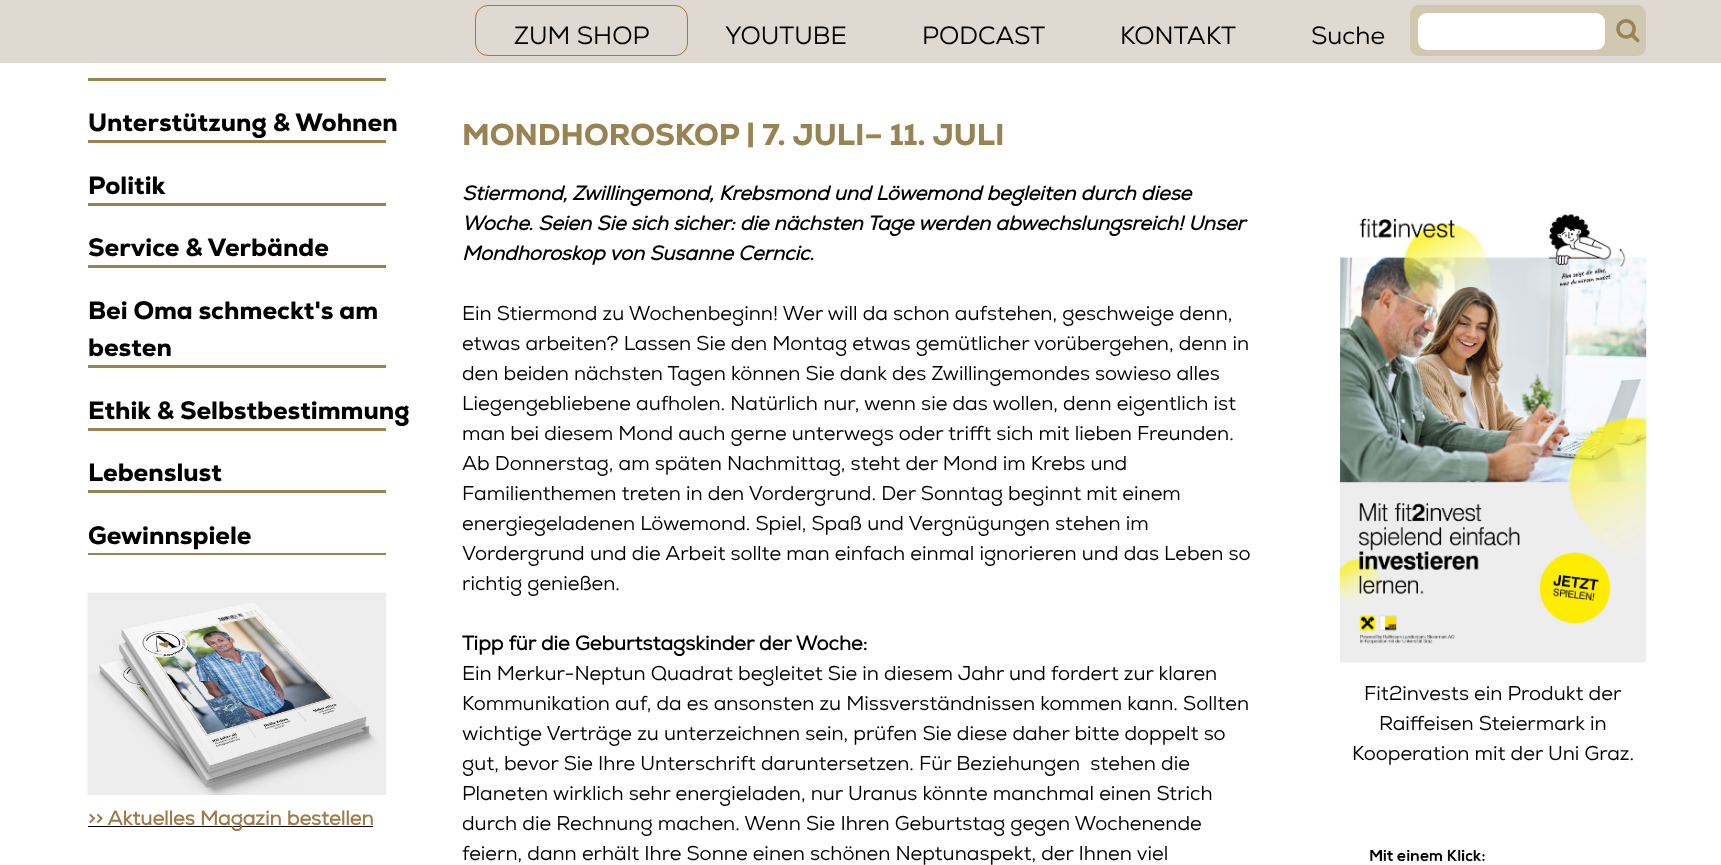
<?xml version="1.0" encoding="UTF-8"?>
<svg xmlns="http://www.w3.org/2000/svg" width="1721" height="865">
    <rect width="100%" height="100%" fill="#FFFFFF"/>
    <rect x="0" y="0" width="1721" height="63" fill="#E0D9D1"/>
    <rect x="475.5" y="5.5" width="212" height="50" rx="12.5" fill="none" stroke="#9D794B"/>
    <text x="514" y="44" font-family="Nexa" font-size="25" fill="#000000">ZUM SHOP</text>
    <text x="725" y="44" font-family="Nexa" font-size="25" fill="#000000">YOUTUBE</text>
    <text x="922" y="44" font-family="Nexa" font-size="25" fill="#000000">PODCAST</text>
    <text x="1120" y="44" font-family="Nexa" font-size="25" fill="#000000">KONTAKT</text>
    <text x="1311" y="44" font-family="Nexa" font-size="25" fill="#000000">Suche</text>
    <rect x="1410.5" y="5.5" width="235" height="50" rx="8.5" fill="#D1C8B2" stroke="#D1C8B2"/>
    <rect x="1418" y="13" width="187" height="37" rx="9" fill="#FFFFFF"/>
    <image x="1616" y="19" width="24" height="24" href="img_01.png"/>
    <rect x="88" y="78" width="298" height="3" fill="#998353"/>
    <text x="88" y="131" font-family="Nexa" font-size="25" font-weight="900" fill="#000000">Unterstützung &amp; Wohnen</text>
    <rect x="88" y="140" width="298" height="3" fill="#998353"/>
    <text x="88" y="194" font-family="Nexa" font-size="25" font-weight="900" fill="#000000">Politik</text>
    <rect x="88" y="203" width="298" height="3" fill="#998353"/>
    <text x="88" y="256" font-family="Nexa" font-size="25" font-weight="900" fill="#000000">Service &amp; Verbände</text>
    <rect x="88" y="265" width="298" height="3" fill="#998353"/>
    <text font-family="Nexa" font-size="25" font-weight="900" fill="#000000">
        <tspan x="88" y="319">Bei Oma schmeckt's am</tspan>
        <tspan x="88" y="356">besten</tspan>
    </text>
    <rect x="88" y="365" width="298" height="3" fill="#998353"/>
    <text x="88" y="419" font-family="Nexa" font-size="25" font-weight="900" fill="#000000">Ethik &amp; Selbstbestimmung</text>
    <rect x="88" y="428" width="298" height="3" fill="#998353"/>
    <text x="88" y="481" font-family="Nexa" font-size="25" font-weight="900" fill="#000000">Lebenslust</text>
    <rect x="88" y="490" width="298" height="3" fill="#998353"/>
    <text x="88" y="544" font-family="Nexa" font-size="25" font-weight="900" fill="#000000">Gewinnspiele</text>
    <rect x="88" y="553" width="298" height="2" fill="#998353"/>
    <image x="87" y="592" width="300" height="203" href="img_02.png"/>
    <rect x="88" y="826" width="285" height="1" fill="#000000"/>
    <text x="88" y="825" font-family="Nexa" font-size="20" font-weight="700" fill="#9D7B4A">&gt;&gt; Aktuelles Magazin bestellen</text>
    <text x="462" y="145" font-family="Nexa" font-size="30" font-weight="900" fill="#998353">MONDHOROSKOP | 7. JULI– 11. JULI</text>
    <text font-family="Nexa" font-size="20" font-weight="700" font-style="italic" fill="#000000">
        <tspan x="462" y="200">Stiermond, Zwillingemond, Krebsmond und Löwemond begleiten durch diese</tspan>
        <tspan x="462" y="230">Woche. Seien Sie sich sicher: die nächsten Tage werden abwechslungsreich! Unser</tspan>
        <tspan x="462" y="260">Mondhoroskop von Susanne Cerncic.</tspan>
    </text>
    <text font-family="Nexa" font-size="20" fill="#000000">
        <tspan x="462" y="320">Ein Stiermond zu Wochenbeginn! Wer will da schon aufstehen, geschweige denn,</tspan>
        <tspan x="462" y="350">etwas arbeiten? Lassen Sie den Montag etwas gemütlicher vorübergehen, denn in</tspan>
        <tspan x="462" y="380">den beiden nächsten Tagen können Sie dank des Zwillingemondes sowieso alles</tspan>
        <tspan x="462" y="410">Liegengebliebene aufholen. Natürlich nur, wenn sie das wollen, denn eigentlich ist</tspan>
        <tspan x="462" y="440">man bei diesem Mond auch gerne unterwegs oder trifft sich mit lieben Freunden.</tspan>
        <tspan x="462" y="470">Ab Donnerstag, am späten Nachmittag, steht der Mond im Krebs und</tspan>
        <tspan x="462" y="500">Familienthemen treten in den Vordergrund. Der Sonntag beginnt mit einem</tspan>
        <tspan x="462" y="530">energiegeladenen Löwemond. Spiel, Spaß und Vergnügungen stehen im</tspan>
        <tspan x="462" y="560">Vordergrund und die Arbeit sollte man einfach einmal ignorieren und das Leben so</tspan>
        <tspan x="462" y="590">richtig genießen.</tspan>
    </text>
    <text x="462" y="650" font-family="Nexa" font-size="20" font-weight="700" fill="#000000">Tipp für die Geburtstagskinder der Woche:</text>
    <text font-family="Nexa" font-size="20" fill="#000000" xml:space="preserve"><tspan x="462" y="680">Ein Merkur-Neptun Quadrat begleitet Sie in diesem Jahr und fordert zur klaren</tspan><tspan x="462" y="710">Kommunikation auf, da es ansonsten zu Missverständnissen kommen kann. Sollten</tspan><tspan x="462" y="740">wichtige Verträge zu unterzeichnen sein, prüfen Sie diese daher bitte doppelt so</tspan><tspan x="462" y="770">gut, bevor Sie Ihre Unterschrift daruntersetzen. Für Beziehungen  stehen die</tspan><tspan x="462" y="800">Planeten wirklich sehr energieladen, nur Uranus könnte manchmal einen Strich</tspan><tspan x="462" y="830">durch die Rechnung machen. Wenn Sie Ihren Geburtstag gegen Wochenende</tspan><tspan x="462" y="860">feiern, dann erhält Ihre Sonne einen schönen Neptunaspekt, der Ihnen viel</tspan></text>
    <image x="1340" y="214" width="307" height="449" href="img_03.png"/>
    <text x="1364" y="700" font-family="Nexa" font-size="20" fill="#000000">Fit2invests ein Produkt der</text>
    <text x="1379" y="730" font-family="Nexa" font-size="20" fill="#000000">Raiffeisen Steiermark in</text>
    <text x="1352" y="760" font-family="Nexa" font-size="20" fill="#000000">Kooperation mit der Uni Graz.</text>
    <image x="1370" y="849" width="115" height="13" href="img_04.png"/>
</svg>
